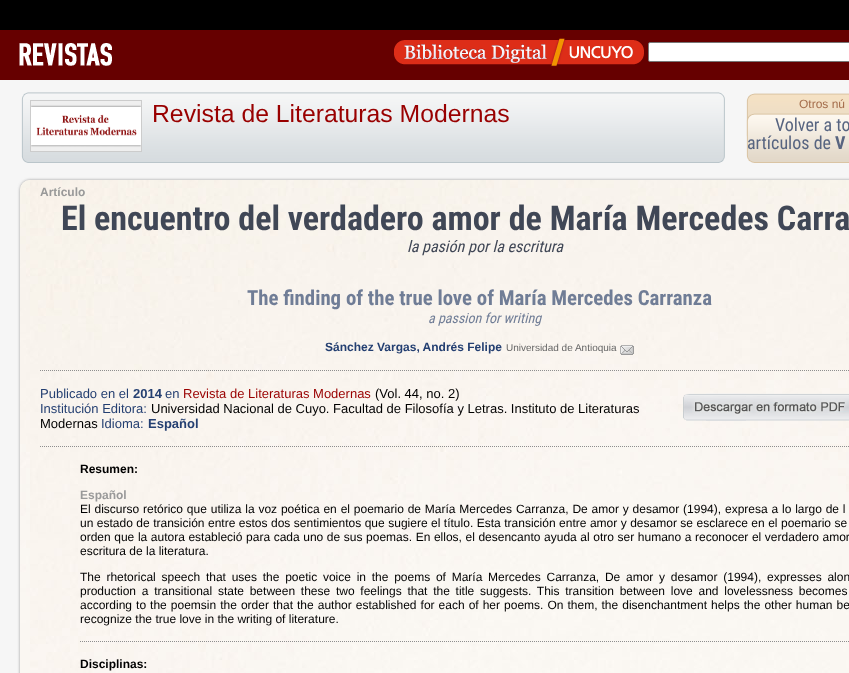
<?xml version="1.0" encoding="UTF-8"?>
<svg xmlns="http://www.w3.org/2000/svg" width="849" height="673">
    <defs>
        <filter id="blur1" x="-50%" y="-200%" width="200%" height="500%"><feGaussianBlur stdDeviation="1.5"/></filter>
    </defs>
    <rect width="100%" height="100%" fill="#F6F6F6"/>
    <rect x="0" y="0" width="849" height="30" fill="#000000"/>
    <rect x="0" y="30" width="849" height="50" fill="#660000"/>
    <image x="19" y="43" width="93" height="23" href="img_01.png"/>
    <image x="394" y="38" width="250" height="29" href="img_02.png"/>
    <rect x="648.5" y="42.5" width="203" height="19" rx="1.5" fill="#FFFFFF" stroke="#767676"/>
    <image x="21" y="92" width="704" height="71" href="img_03.png"/>
    <rect x="30.5" y="100.5" width="111" height="51" fill="none" stroke="#CCCCCC"/>
    <image x="31" y="101" width="110" height="50" href="img_04.png"/>
    <text x="152" y="122" font-family="Liberation Sans" font-size="24.75" fill="#990000">Revista de Literaturas Modernas</text>
    <image x="746" y="93" width="103" height="70" href="img_05.png"/>
    <text x="799" y="108" font-family="Liberation Sans" font-size="12" fill="#A46D4B">Otros nú</text>
    <text x="775" y="131" font-family="Roboto Condensed" font-size="18" fill="#576480">Volver a to</text>
    <text x="747" y="149" font-family="Roboto Condensed" font-size="18" fill="#576480">artículos de</text>
    <text x="835" y="149" font-family="Roboto Condensed" font-size="18" font-weight="700" fill="#576480">V</text>
    <rect x="20" y="180" width="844" height="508" rx="10" fill="#999999" filter="url(#blur1)"/>
    <rect x="20" y="180" width="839" height="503" rx="10" fill="#FEF9F2"/>
    <image x="20" y="180" width="829" height="493" href="img_06.png"/>
    <text x="40" y="196" font-family="Liberation Sans" font-size="12" font-weight="700" fill="#999999">Artículo</text>
    <text x="61" y="230" font-family="Roboto Condensed" font-size="34" font-weight="700" fill="#404756">El encuentro del verdadero amor de María Mercedes Carra</text>
    <text x="407" y="252" font-family="Roboto Condensed" font-size="16" font-style="italic" fill="#404756">la pasión por la escritura</text>
    <text x="247" y="305" font-family="Roboto Condensed" font-size="20.8" font-weight="700" fill="#707D96">The finding of the true love of María Mercedes Carranza</text>
    <text x="428" y="323" font-family="Roboto Condensed" font-size="14" font-style="italic" fill="#707D96">a passion for writing</text>
    <text x="325" y="351" font-family="Liberation Sans" font-size="12" font-weight="700" fill="#243F71">Sánchez Vargas, Andrés Felipe</text>
    <text x="506" y="351" font-family="Liberation Sans" font-size="10" fill="#666666">Universidad de Antioquia</text>
    <image x="620" y="345" width="14" height="10" href="img_07.png"/>
    <path d="M 40 370.5 H 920" fill="none" stroke="#8E8E8E" stroke-dasharray="1 1"/>
    <text x="40" y="398" font-family="Liberation Sans" font-size="13" fill="#243F71">Publicado en el</text>
    <text x="133" y="398" font-family="Liberation Sans" font-size="13" font-weight="700" fill="#243F71">2014</text>
    <text x="165" y="398" font-family="Liberation Sans" font-size="13" fill="#243F71">en</text>
    <text x="183" y="398" font-family="Liberation Sans" font-size="13" fill="#990000">Revista de Literaturas Modernas</text>
    <text x="375" y="398" font-family="Liberation Sans" font-size="13" fill="#000000">(Vol. 44, no. 2)</text>
    <text x="40" y="413" font-family="Liberation Sans" font-size="13" fill="#243F71">Institución Editora:</text>
    <text x="151" y="413" font-family="Liberation Sans" font-size="13" fill="#000000">Universidad Nacional de Cuyo. Facultad de Filosofía y Letras. Instituto de Literaturas</text>
    <text x="40" y="428" font-family="Liberation Sans" font-size="13" fill="#000000">Modernas</text>
    <text x="101" y="428" font-family="Liberation Sans" font-size="13" fill="#243F71">Idioma:</text>
    <text x="148" y="428" font-family="Liberation Sans" font-size="13" font-weight="700" fill="#243F71">Español</text>
    <image x="683" y="393" width="166" height="28" href="img_08.png"/>
    <path d="M 40 446.5 H 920" fill="none" stroke="#8E8E8E" stroke-dasharray="1 1"/>
    <text x="80" y="473" font-family="Liberation Sans" font-size="12" font-weight="700" fill="#000000">Resumen:</text>
    <text x="80" y="499" font-family="Liberation Sans" font-size="12" font-weight="700" fill="#999999">Español</text>
    <text font-family="Liberation Sans" font-size="12" fill="#000000">
        <tspan x="80" y="513" word-spacing="0.5">El discurso retórico que utiliza la voz poética en el poemario de María Mercedes Carranza, De amor y desamor (1994), expresa a lo largo de l</tspan>
        <tspan x="80" y="527" word-spacing="0.15">un estado de transición entre estos dos sentimientos que sugiere el título. Esta transición entre amor y desamor se esclarece en el poemario se</tspan>
        <tspan x="80" y="541" word-spacing="0.25">orden que la autora estableció para cada uno de sus poemas. En ellos, el desencanto ayuda al otro ser humano a reconocer el verdadero amor</tspan>
        <tspan x="80" y="555">escritura de la literatura.</tspan>
    </text>
    <text font-family="Liberation Sans" font-size="12" fill="#000000">
        <tspan x="80" y="581" word-spacing="2.4">The rhetorical speech that uses the poetic voice in the poems of María Mercedes Carranza, De amor y desamor (1994), expresses alon</tspan>
        <tspan x="80" y="595" word-spacing="2.4">production a transitional state between these two feelings that the title suggests. This transition between love and lovelessness becomes</tspan>
        <tspan x="80" y="609" word-spacing="0.7">according to the poemsin the order that the author established for each of her poems. On them, the disenchantment helps the other human be</tspan>
        <tspan x="80" y="623">recognize the true love in the writing of literature.</tspan>
    </text>
    <path d="M 80 641.5 H 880" fill="none" stroke="#8E8E8E" stroke-dasharray="1 1"/>
    <text x="80" y="668" font-family="Liberation Sans" font-size="12" font-weight="700" fill="#000000">Disciplinas:</text>
</svg>
